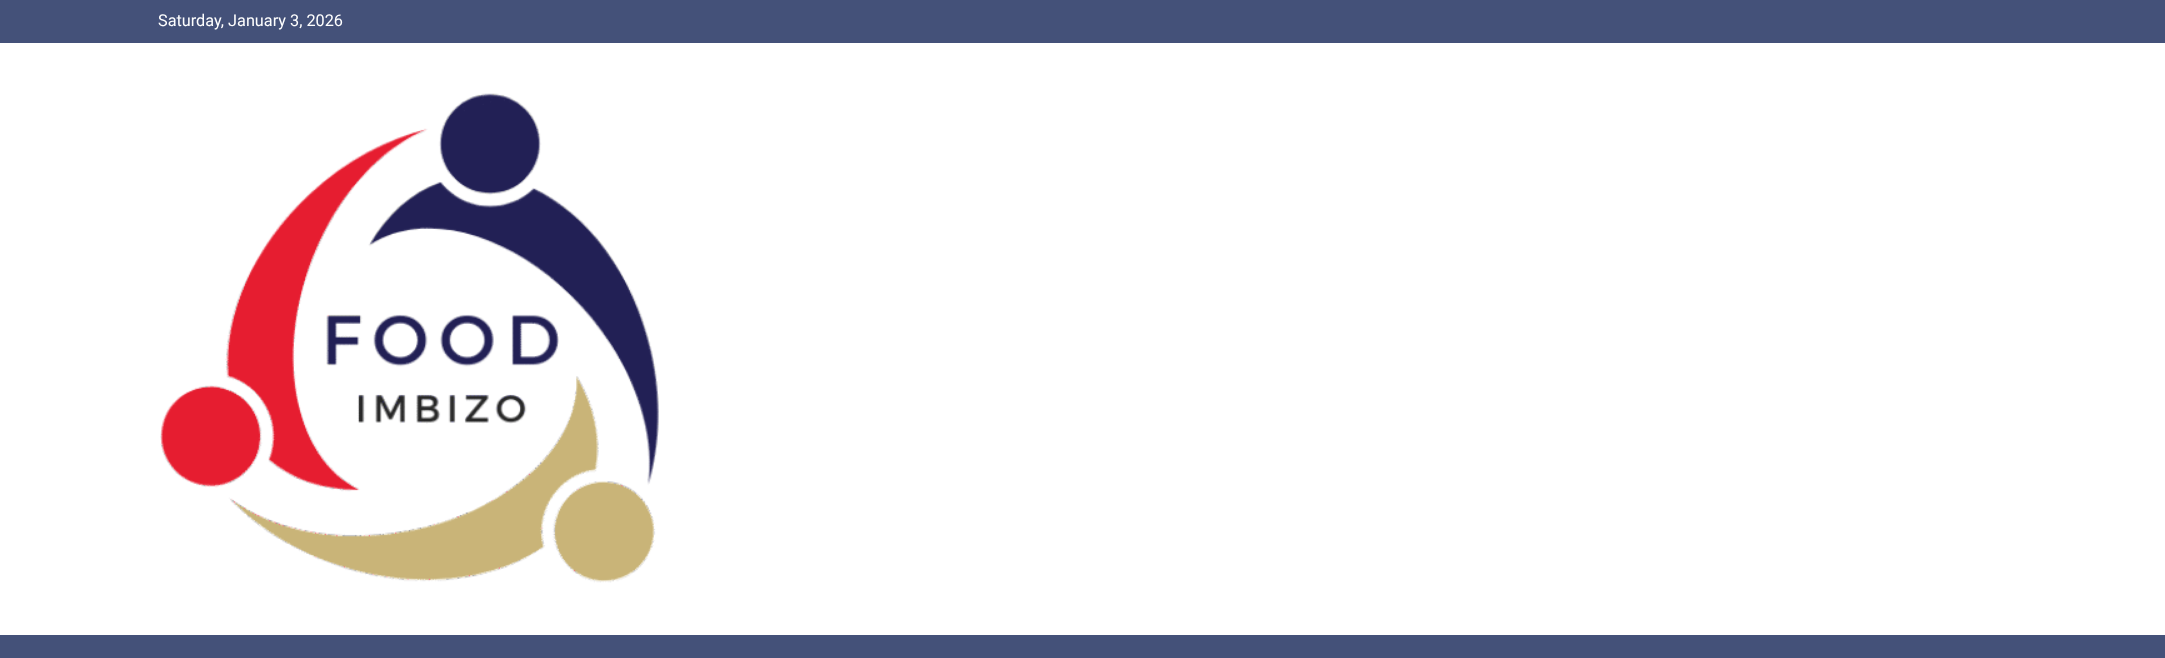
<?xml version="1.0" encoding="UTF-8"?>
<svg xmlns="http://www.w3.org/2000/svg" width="2165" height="658">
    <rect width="100%" height="100%" fill="#445179"/>
    <text x="158" y="26" font-family="Roboto" font-size="16.25" fill="#FFFFFF">Saturday, January 3, 2026</text>
    <rect x="0" y="43" width="2165" height="592" fill="#FFFFFF"/>
    <image x="160" y="93" width="499" height="490" href="img_01.png"/>
</svg>
